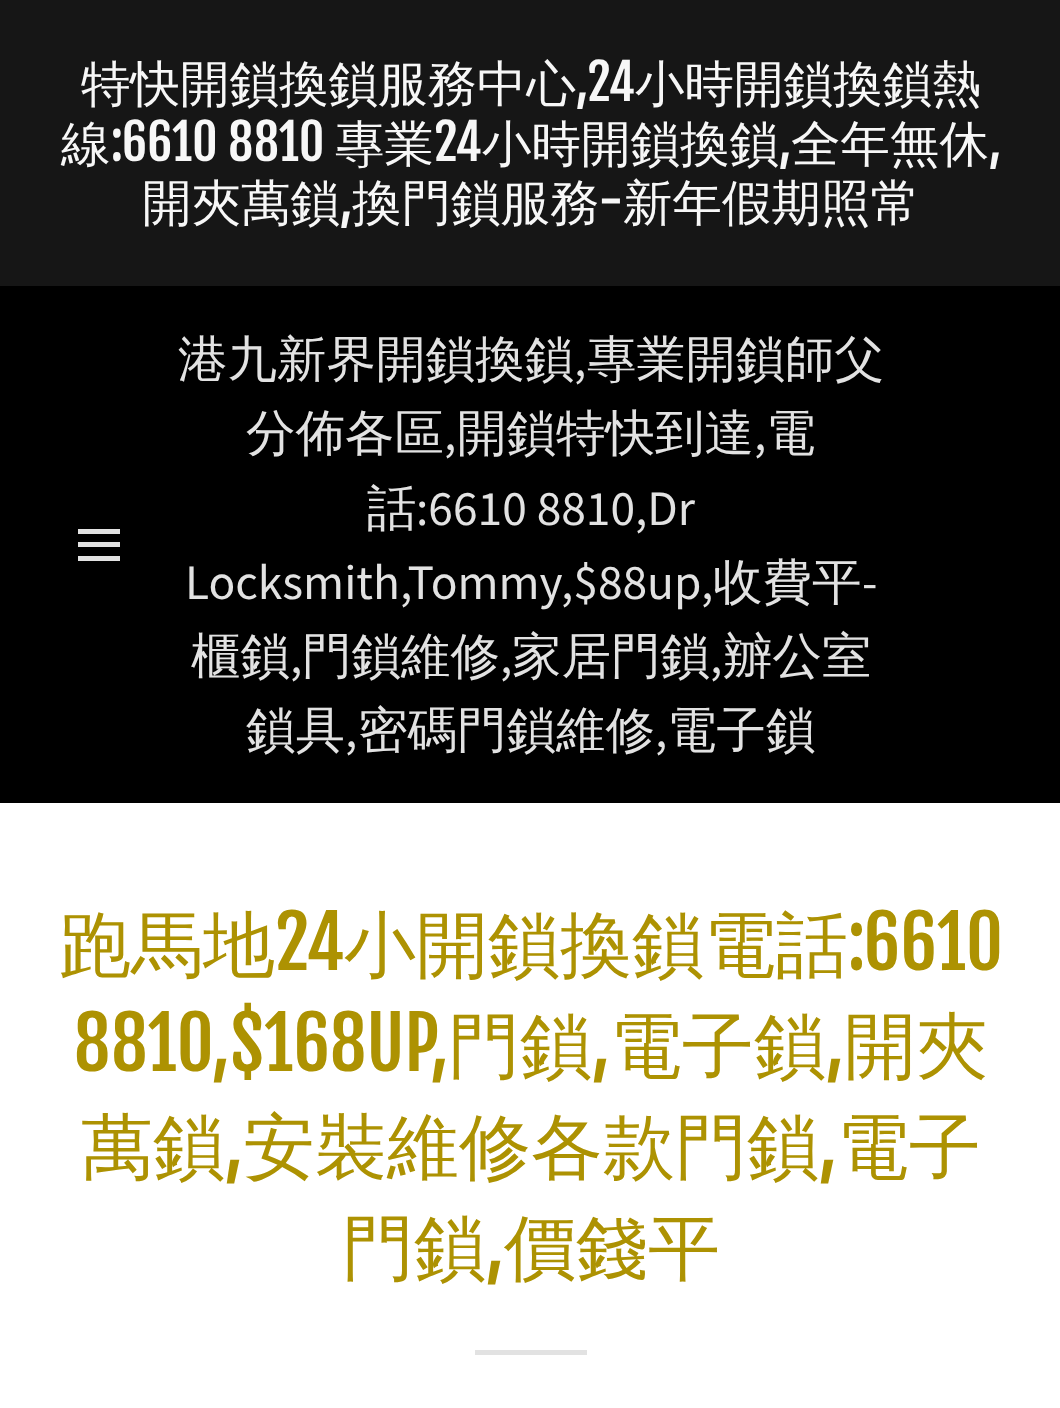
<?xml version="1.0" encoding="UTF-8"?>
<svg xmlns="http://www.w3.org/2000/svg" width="1060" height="1408">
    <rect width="100%" height="100%" fill="#161616"/>
    <text x="81" y="101" font-family="WenQuanYi Zen Hei" font-size="49.5" font-weight="500" fill="#F7F7F7">特快開鎖換鎖服務中心</text>
    <text x="576" y="101" font-family="Fjalla One" font-size="49.5" fill="#F7F7F7">,24</text>
    <text x="635" y="101" font-family="WenQuanYi Zen Hei" font-size="49.5" font-weight="500" fill="#F7F7F7">小時開鎖換鎖熱</text>
    <text x="61" y="161" font-family="WenQuanYi Zen Hei" font-size="49.5" font-weight="500" fill="#F7F7F7">線</text>
    <text x="111" y="161" font-family="Fjalla One" font-size="49.5" fill="#F7F7F7">:6610 8810</text>
    <text x="335" y="161" font-family="WenQuanYi Zen Hei" font-size="49.5" font-weight="500" fill="#F7F7F7">專業</text>
    <text x="434" y="161" font-family="Fjalla One" font-size="49.5" fill="#F7F7F7">24</text>
    <text x="482" y="161" font-family="WenQuanYi Zen Hei" font-size="49.5" font-weight="500" fill="#F7F7F7">小時開鎖換鎖</text>
    <text x="779" y="161" font-family="Fjalla One" font-size="49.5" fill="#F7F7F7">,</text>
    <text x="791" y="161" font-family="WenQuanYi Zen Hei" font-size="49.5" font-weight="500" fill="#F7F7F7">全年無休</text>
    <text x="989" y="161" font-family="Fjalla One" font-size="49.5" fill="#F7F7F7">,</text>
    <text x="142" y="220" font-family="WenQuanYi Zen Hei" font-size="49.5" font-weight="500" fill="#F7F7F7">開夾萬鎖</text>
    <text x="352" y="220" font-family="WenQuanYi Zen Hei" font-size="49.5" font-weight="500" fill="#F7F7F7">換門鎖服務</text>
    <text x="599" y="220" font-family="Fjalla One" font-size="49.5" fill="#F7F7F7">-</text>
    <text x="623" y="220" font-family="WenQuanYi Zen Hei" font-size="49.5" font-weight="500" fill="#F7F7F7">新年假期照常</text>
    <text x="340" y="220" font-family="Fjalla One" font-size="49.5" fill="#F7F7F7">,</text>
    <rect x="0" y="286" width="1060" height="517" fill="#000000"/>
    <rect x="78" y="529" width="42" height="5" fill="#E2E2E2"/>
    <rect x="78" y="542" width="42" height="5" fill="#E2E2E2"/>
    <rect x="78" y="556" width="42" height="5" fill="#E2E2E2"/>
    <text x="178" y="376" font-family="WenQuanYi Zen Hei" font-size="49.5" font-weight="500" fill="#E2E2E2">港九新界開鎖換鎖</text>
    <text x="574" y="376" font-family="Source Sans Pro" font-size="49.5" fill="#E2E2E2">,</text>
    <text x="587" y="376" font-family="WenQuanYi Zen Hei" font-size="49.5" font-weight="500" fill="#E2E2E2">專業開鎖師父</text>
    <text x="246" y="450" font-family="WenQuanYi Zen Hei" font-size="49.5" font-weight="500" fill="#E2E2E2">分佈各區</text>
    <text x="444" y="450" font-family="Source Sans Pro" font-size="49.5" fill="#E2E2E2">,</text>
    <text x="457" y="450" font-family="WenQuanYi Zen Hei" font-size="49.5" font-weight="500" fill="#E2E2E2">開鎖特快到達</text>
    <text x="754" y="450" font-family="Source Sans Pro" font-size="49.5" fill="#E2E2E2">,</text>
    <text x="766" y="450" font-family="WenQuanYi Zen Hei" font-size="49.5" font-weight="500" fill="#E2E2E2">電</text>
    <text x="367" y="525" font-family="WenQuanYi Zen Hei" font-size="49.5" font-weight="500" fill="#E2E2E2">話</text>
    <text x="416" y="525" font-family="Source Sans Pro" font-size="49.5" fill="#E2E2E2">:6610 8810,Dr</text>
    <text x="185" y="599" font-family="Source Sans Pro" font-size="49.5" fill="#E2E2E2">Locksmith,Tommy,$88up,</text>
    <text x="713" y="599" font-family="WenQuanYi Zen Hei" font-size="49.5" font-weight="500" fill="#E2E2E2">收費平</text>
    <text x="862" y="599" font-family="Source Sans Pro" font-size="49.5" fill="#E2E2E2">-</text>
    <text x="191" y="673" font-family="WenQuanYi Zen Hei" font-size="49.5" font-weight="500" fill="#E2E2E2">櫃鎖</text>
    <text x="290" y="673" font-family="Source Sans Pro" font-size="49.5" fill="#E2E2E2">,</text>
    <text x="302" y="673" font-family="WenQuanYi Zen Hei" font-size="49.5" font-weight="500" fill="#E2E2E2">門鎖維修</text>
    <text x="500" y="673" font-family="Source Sans Pro" font-size="49.5" fill="#E2E2E2">,</text>
    <text x="512" y="673" font-family="WenQuanYi Zen Hei" font-size="49.5" font-weight="500" fill="#E2E2E2">家居門鎖</text>
    <text x="710" y="673" font-family="Source Sans Pro" font-size="49.5" fill="#E2E2E2">,</text>
    <text x="723" y="673" font-family="WenQuanYi Zen Hei" font-size="49.5" font-weight="500" fill="#E2E2E2">辧公室</text>
    <text x="246" y="747" font-family="WenQuanYi Zen Hei" font-size="49.5" font-weight="500" fill="#E2E2E2">鎖具</text>
    <text x="345" y="747" font-family="Source Sans Pro" font-size="49.5" fill="#E2E2E2">,</text>
    <text x="358" y="747" font-family="WenQuanYi Zen Hei" font-size="49.5" font-weight="500" fill="#E2E2E2">密碼門鎖維修</text>
    <text x="655" y="747" font-family="Source Sans Pro" font-size="49.5" fill="#E2E2E2">,</text>
    <text x="667" y="747" font-family="WenQuanYi Zen Hei" font-size="49.5" font-weight="500" fill="#E2E2E2">電子鎖</text>
    <rect x="0" y="803" width="1060" height="605" fill="#FFFFFF"/>
    <text x="59" y="970" font-family="WenQuanYi Zen Hei" font-size="72" font-weight="500" fill="#AD9202">跑馬地</text>
    <text x="275" y="970" font-family="Fjalla One" font-size="72" fill="#AD9202">24</text>
    <text x="344" y="970" font-family="WenQuanYi Zen Hei" font-size="72" font-weight="500" fill="#AD9202">小開鎖換鎖電話</text>
    <text x="848" y="970" font-family="Fjalla One" font-size="72" fill="#AD9202">:6610</text>
    <text x="74" y="1071" font-family="Fjalla One" font-size="72" fill="#AD9202">8810,$168UP,</text>
    <text x="448" y="1071" font-family="WenQuanYi Zen Hei" font-size="72" font-weight="500" fill="#AD9202">門鎖</text>
    <text x="592" y="1071" font-family="Fjalla One" font-size="72" fill="#AD9202">,</text>
    <text x="610" y="1071" font-family="WenQuanYi Zen Hei" font-size="72" font-weight="500" fill="#AD9202">電子鎖</text>
    <text x="826" y="1071" font-family="Fjalla One" font-size="72" fill="#AD9202">,</text>
    <text x="844" y="1071" font-family="WenQuanYi Zen Hei" font-size="72" font-weight="500" fill="#AD9202">開夾</text>
    <text x="81" y="1172" font-family="WenQuanYi Zen Hei" font-size="72" font-weight="500" fill="#AD9202">萬鎖</text>
    <text x="225" y="1172" font-family="Fjalla One" font-size="72" fill="#AD9202">,</text>
    <text x="243" y="1172" font-family="WenQuanYi Zen Hei" font-size="72" font-weight="500" fill="#AD9202">安裝維修各款門鎖</text>
    <text x="819" y="1172" font-family="Fjalla One" font-size="72" fill="#AD9202">,</text>
    <text x="837" y="1172" font-family="WenQuanYi Zen Hei" font-size="72" font-weight="500" fill="#AD9202">電子</text>
    <text x="342" y="1273" font-family="WenQuanYi Zen Hei" font-size="72" font-weight="500" fill="#AD9202">門鎖</text>
    <text x="486" y="1273" font-family="Fjalla One" font-size="72" fill="#AD9202">,</text>
    <text x="504" y="1273" font-family="WenQuanYi Zen Hei" font-size="72" font-weight="500" fill="#AD9202">價錢平</text>
    <rect x="475" y="1350" width="112" height="5" fill="#E2E2E2"/>
</svg>
